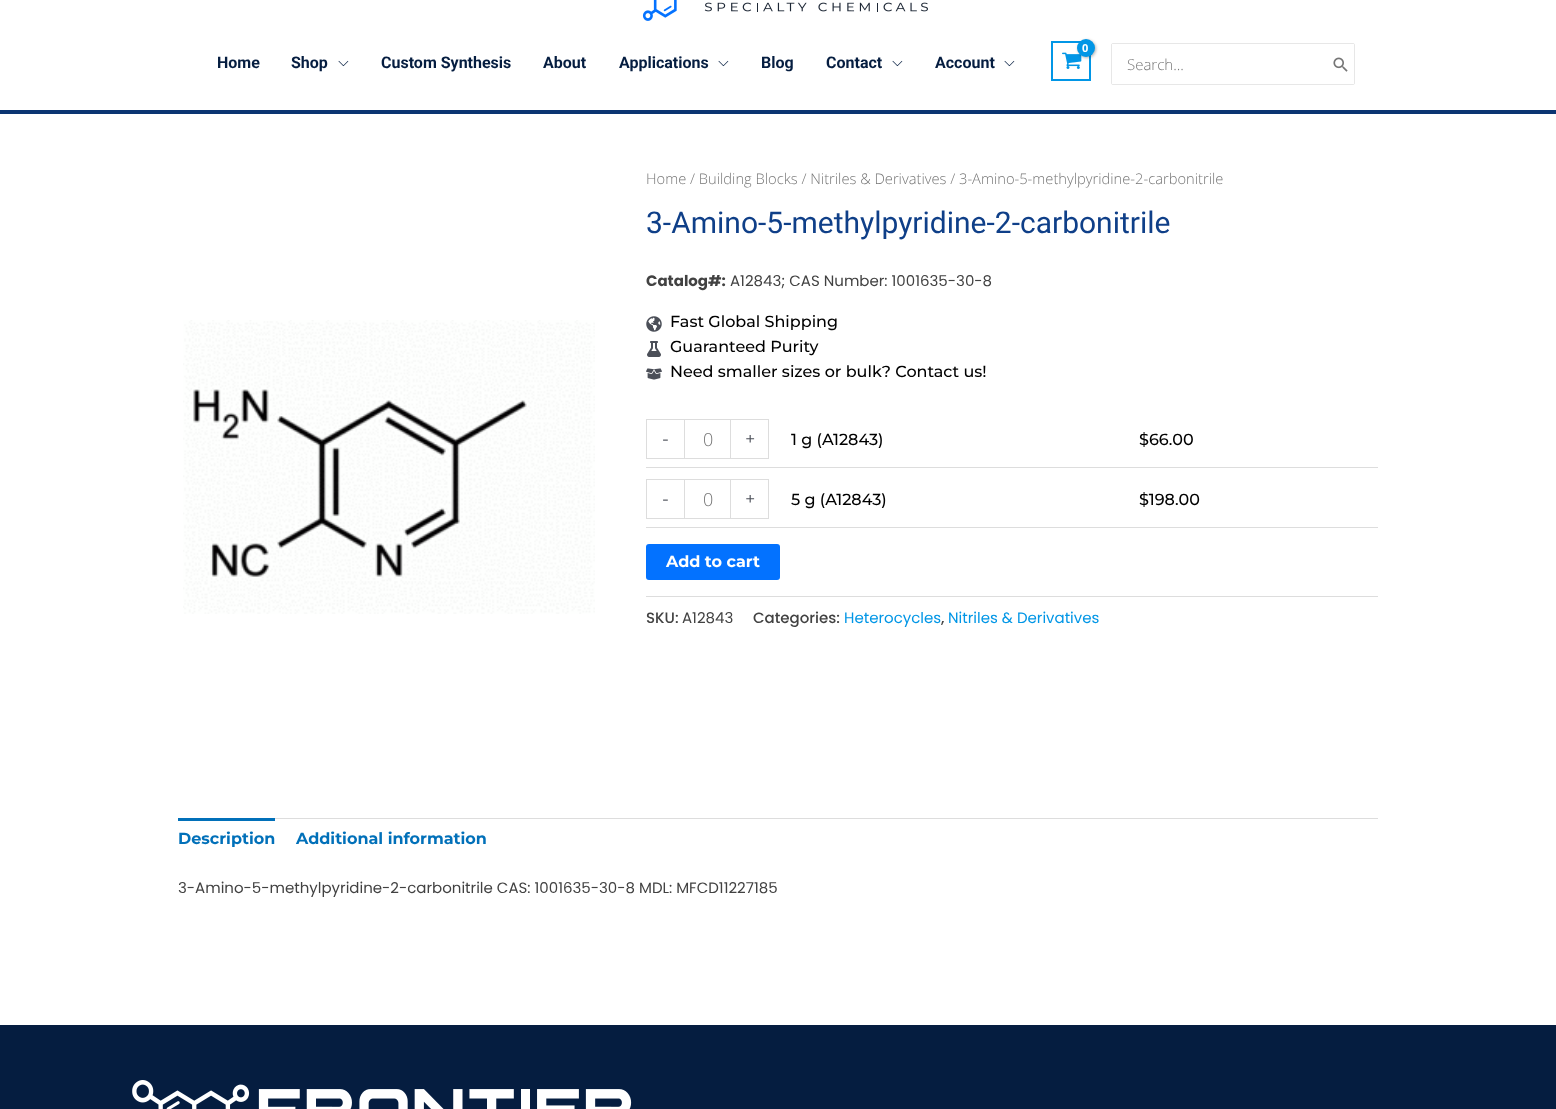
<?xml version="1.0" encoding="UTF-8"?>
<svg xmlns="http://www.w3.org/2000/svg" width="1556" height="1109">
    <defs>
        <filter id="blur1" x="-50%" y="-200%" width="200%" height="500%"><feGaussianBlur stdDeviation="1.5"/></filter>
    </defs>
    <rect width="100%" height="100%" fill="#FFFFFF"/>
    <image x="642" y="0" width="286" height="21" href="img_01.png"/>
    <rect x="0" y="110" width="1556" height="4" fill="#0B3572"/>
    <rect x="1052" y="42" width="38" height="38" fill="none" stroke="#0196E6" stroke-width="2"/>
    <image x="1062" y="52" width="20" height="17" href="img_02.png"/>
    <rect x="1078" y="40" width="18" height="18" rx="9" fill="#000000" fill-opacity="0.3" filter="url(#blur1)"/>
    <circle cx="1086" cy="48" r="9" fill="#0196E6"/>
    <text x="1082" y="52" font-family="Open Sans" font-size="11" font-weight="700" fill="#FFFFFF">0</text>
    <text x="217" y="68" font-family="Roboto" font-size="16" font-weight="700" fill="#051D40">Home</text>
    <text x="291" y="68" font-family="Roboto" font-size="16" font-weight="700" fill="#051D40">Shop</text>
    <image x="338" y="60" width="11" height="7" href="img_03.png"/>
    <text x="381" y="68" font-family="Roboto" font-size="16" font-weight="700" fill="#051D40">Custom Synthesis</text>
    <text x="543" y="68" font-family="Roboto" font-size="16" font-weight="700" fill="#051D40">About</text>
    <text x="619" y="68" font-family="Roboto" font-size="16" font-weight="700" fill="#051D40">Applications</text>
    <image x="718" y="60" width="11" height="7" href="img_03.png"/>
    <text x="761" y="68" font-family="Roboto" font-size="16" font-weight="700" fill="#051D40">Blog</text>
    <text x="826" y="68" font-family="Roboto" font-size="16" font-weight="700" fill="#051D40">Contact</text>
    <image x="892" y="60" width="11" height="7" href="img_03.png"/>
    <text x="935" y="68" font-family="Roboto" font-size="16" font-weight="700" fill="#051D40">Account</text>
    <image x="1004" y="60" width="11" height="7" href="img_03.png"/>
    <rect x="1111.5" y="43.5" width="243" height="41" rx="1.5" fill="none" stroke="#E7E7E7"/>
    <rect x="1112" y="44" width="242" height="40" fill="#FFFFFF"/>
    <text x="1127" y="70" font-family="Open Sans" font-size="15" font-weight="300" fill="#777777">Search...</text>
    <image x="1333" y="57" width="15" height="15" href="img_04.png"/>
    <image x="183" y="320" width="412" height="294" href="img_05.png"/>
    <text x="646" y="184" font-family="Open Sans" font-size="14.7" font-weight="300" fill="#777777">Home / Building Blocks / Nitriles &amp; Derivatives / 3-Amino-5-methylpyridine-2-carbonitrile</text>
    <text x="646" y="233" font-family="Roboto" font-size="30" fill="#0F3F88">3-Amino-5-methylpyridine-2-carbonitrile</text>
    <text x="646" y="286" font-family="Poppins" font-size="15" font-weight="700" fill="#424242">Catalog#:</text>
    <text x="730" y="286" font-family="Poppins" font-size="15" fill="#424242">A12843; CAS Number: 1001635-30-8</text>
    <image x="646" y="316" width="16" height="16" href="img_06.png"/>
    <text x="670" y="327" font-family="Montserrat" font-size="16" font-weight="500" fill="#000000">Fast Global Shipping</text>
    <image x="647" y="341" width="14" height="16" href="img_07.png"/>
    <text x="670" y="352" font-family="Montserrat" font-size="16" font-weight="500" fill="#000000">Guaranteed Purity</text>
    <image x="646" y="368" width="16" height="12" href="img_08.png"/>
    <text x="670" y="377" font-family="Montserrat" font-size="16" font-weight="500" fill="#000000">Need smaller sizes or bulk? Contact us!</text>
    <rect x="646" y="527" width="732" height="1" fill="#DDDDDD"/>
    <rect x="646" y="467" width="732" height="1" fill="#DDDDDD"/>
    <rect x="646" y="419" width="38" height="1" fill="#DDDDDD"/>
    <rect x="646" y="458" width="38" height="1" fill="#DDDDDD"/>
    <rect x="646" y="419" width="1" height="40" fill="#DDDDDD"/>
    <text x="662" y="445" font-family="Montserrat" font-size="18" fill="#4B4F58">-</text>
    <rect x="684.5" y="419.5" width="46" height="39" fill="none" stroke="#DDDDDD"/>
    <text x="703" y="446" font-family="Open Sans" font-size="18" font-weight="300" fill="#777777">0</text>
    <rect x="731" y="419" width="38" height="1" fill="#DDDDDD"/>
    <rect x="768" y="419" width="1" height="40" fill="#DDDDDD"/>
    <rect x="731" y="458" width="38" height="1" fill="#DDDDDD"/>
    <text x="745" y="445" font-family="Montserrat" font-size="18" fill="#4B4F58">+</text>
    <text x="791" y="445" font-family="Montserrat" font-size="16" font-weight="500" fill="#000000">1 g (A12843)</text>
    <text x="1139" y="445" font-family="Montserrat" font-size="16" font-weight="500" fill="#000000">$66.00</text>
    <rect x="646" y="479" width="38" height="1" fill="#DDDDDD"/>
    <rect x="646" y="518" width="38" height="1" fill="#DDDDDD"/>
    <rect x="646" y="479" width="1" height="40" fill="#DDDDDD"/>
    <text x="662" y="505" font-family="Montserrat" font-size="18" fill="#4B4F58">-</text>
    <rect x="684.5" y="479.5" width="46" height="39" fill="none" stroke="#DDDDDD"/>
    <text x="703" y="506" font-family="Open Sans" font-size="18" font-weight="300" fill="#777777">0</text>
    <rect x="731" y="479" width="38" height="1" fill="#DDDDDD"/>
    <rect x="768" y="479" width="1" height="40" fill="#DDDDDD"/>
    <rect x="731" y="518" width="38" height="1" fill="#DDDDDD"/>
    <text x="745" y="505" font-family="Montserrat" font-size="18" fill="#4B4F58">+</text>
    <text x="791" y="505" font-family="Montserrat" font-size="16" font-weight="500" fill="#000000">5 g (A12843)</text>
    <text x="1139" y="505" font-family="Montserrat" font-size="16" font-weight="500" fill="#000000">$198.00</text>
    <rect x="646" y="544" width="134" height="36" rx="3" fill="#0372FF"/>
    <text x="666" y="567" font-family="Montserrat" font-size="16" font-weight="700" fill="#FFFFFF">Add to cart</text>
    <rect x="646" y="596" width="732" height="1" fill="#DDDDDD"/>
    <text x="646" y="623" font-family="Poppins" font-size="15" font-weight="500" fill="#424242">SKU:</text>
    <text x="682" y="623" font-family="Poppins" font-size="15" fill="#424242">A12843</text>
    <text x="753" y="623" font-family="Poppins" font-size="15" font-weight="500" fill="#424242">Categories:</text>
    <text x="844" y="623" font-family="Poppins" font-size="15" fill="#0196E6">Heterocycles</text>
    <text x="941" y="623" font-family="Poppins" font-size="15" font-weight="500" fill="#424242">,</text>
    <text x="948" y="623" font-family="Poppins" font-size="15" fill="#0196E6">Nitriles &amp; Derivatives</text>
    <rect x="275" y="818" width="1103" height="1" fill="#DDDDDD"/>
    <rect x="178" y="818" width="97" height="3" fill="#0170B9"/>
    <text x="178" y="844" font-family="Montserrat" font-size="16" font-weight="700" fill="#0170B9">Description</text>
    <text x="296" y="844" font-family="Montserrat" font-size="16" font-weight="700" fill="#0170B9">Additional information</text>
    <text x="178" y="893" font-family="Poppins" font-size="15" fill="#424242">3-Amino-5-methylpyridine-2-carbonitrile CAS: 1001635-30-8 MDL: MFCD11227185</text>
    <rect x="0" y="1025" width="1556" height="84" fill="#051D40"/>
    <image x="132" y="1080" width="500" height="29" href="img_09.png"/>
</svg>
